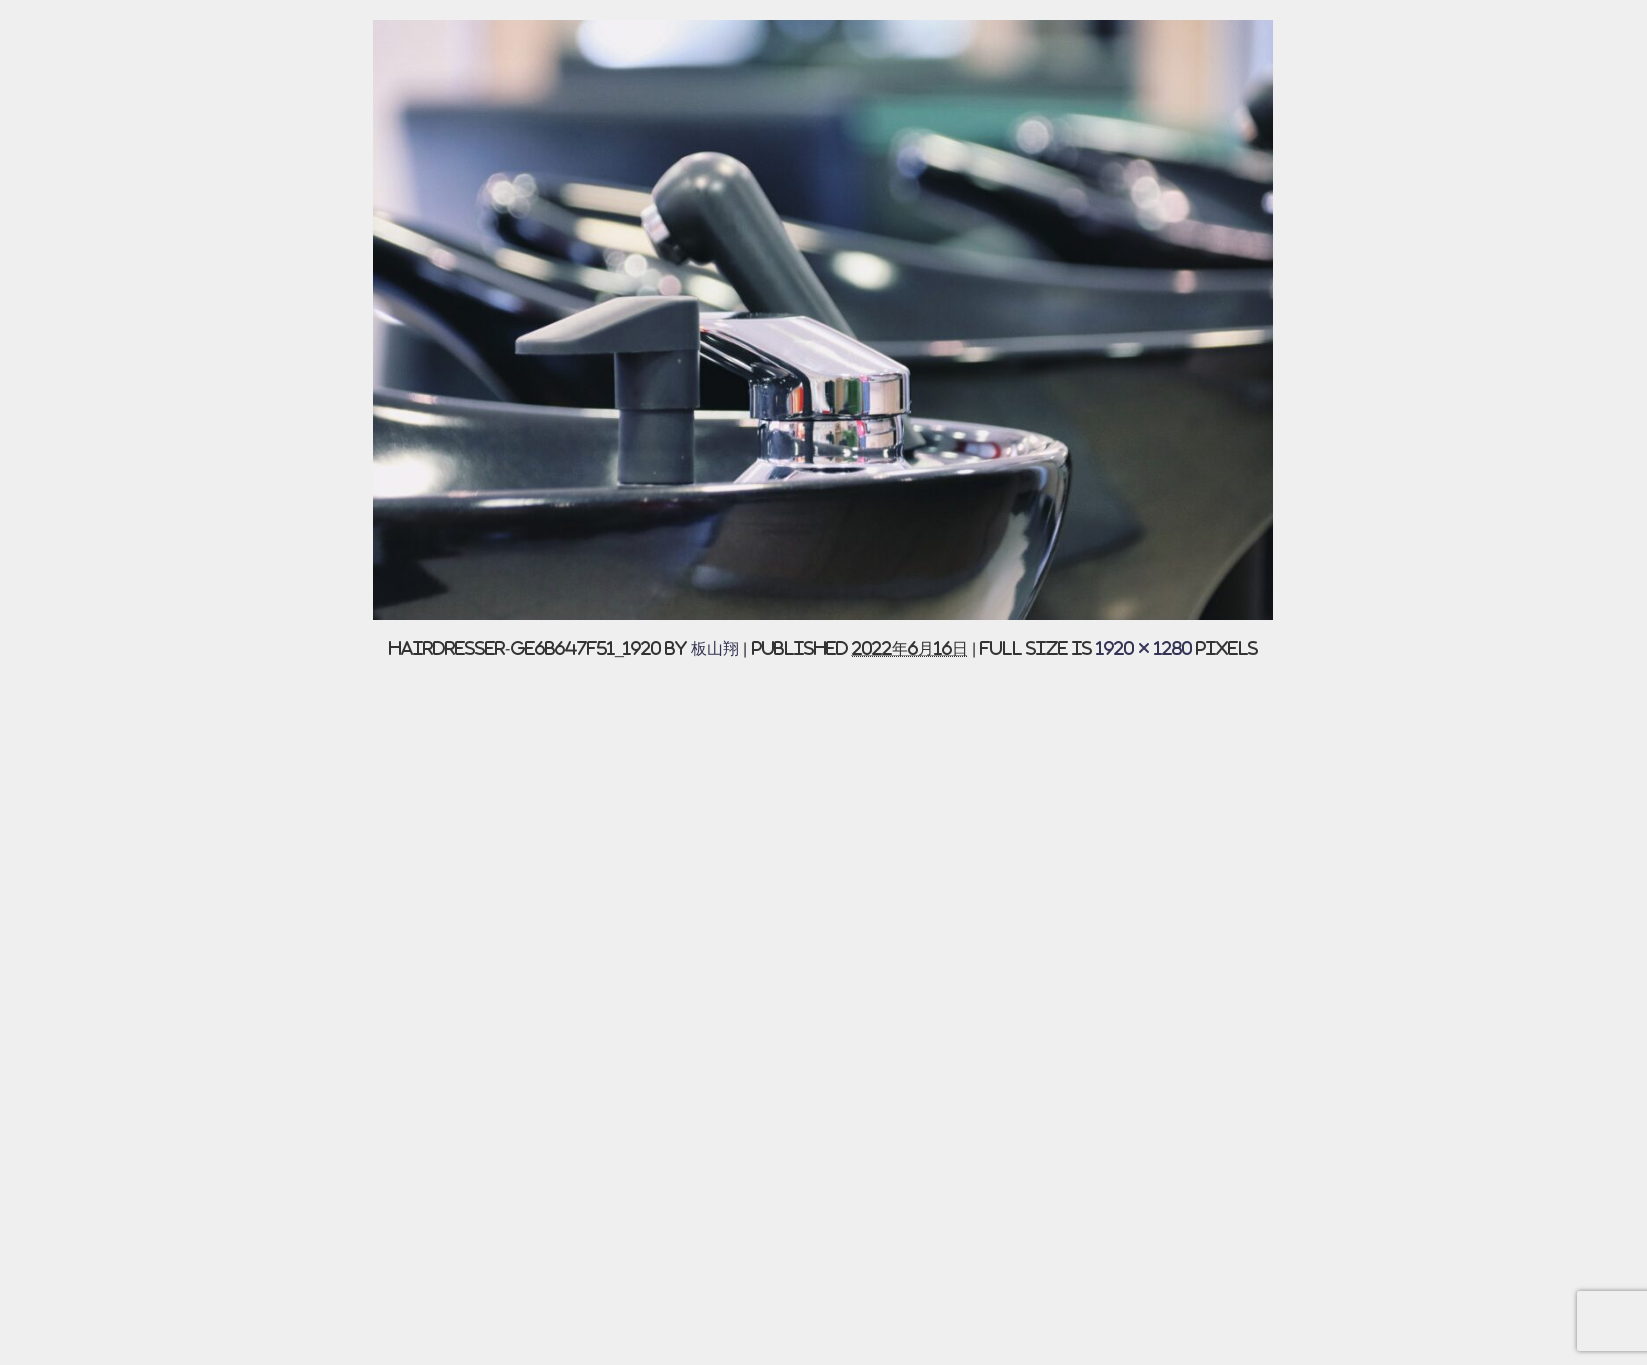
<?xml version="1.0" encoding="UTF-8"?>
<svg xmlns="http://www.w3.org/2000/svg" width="1647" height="1365">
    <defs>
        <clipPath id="clip1"><path d="M 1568 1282 H 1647 V 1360 H 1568 Z M 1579 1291 H 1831 C 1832 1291 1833 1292 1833 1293 V 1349 C 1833 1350 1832 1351 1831 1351 H 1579 C 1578 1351 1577 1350 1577 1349 V 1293 C 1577 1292 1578 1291 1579 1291 Z" clip-rule="evenodd"/></clipPath>
        <filter id="blur1" x="-50%" y="-200%" width="200%" height="500%"><feGaussianBlur stdDeviation="2.5"/></filter>
    </defs>
    <rect width="100%" height="100%" fill="#EFEFEF"/>
    <image x="373" y="20" width="900" height="600" href="img_01.png"/>
    <image x="389" y="641" width="116" height="14" href="img_02.png"/>
    <text x="505" y="654" font-family="Liberation Sans" font-size="16" fill="#333333">-</text>
    <image x="511" y="641" width="104" height="14" href="img_03.png"/>
    <image x="623" y="641" width="38" height="14" href="img_04.png"/>
    <image x="665" y="641" width="22" height="14" href="img_05.png"/>
    <text x="691" y="654" font-family="WenQuanYi Zen Hei" font-size="16" font-weight="500" fill="#333355">板山翔</text>
    <text x="743" y="654" font-family="Liberation Sans" font-size="16" fill="#333333">|</text>
    <image x="752" y="641" width="96" height="14" href="img_06.png"/>
    <image x="852" y="641" width="40" height="14" href="img_07.png"/>
    <path d="M 851.5 655.5 H 967.5" fill="none" stroke="#333333" stroke-dasharray="1 1"/>
    <text x="892" y="654" font-family="WenQuanYi Zen Hei" font-size="16" font-weight="500" fill="#333333">年</text>
    <image x="908" y="641" width="10" height="14" href="img_08.png"/>
    <path d="M 852 656.5 H 968" fill="none" stroke="#333333" stroke-dasharray="1 1"/>
    <text x="918" y="654" font-family="WenQuanYi Zen Hei" font-size="16" font-weight="500" fill="#333333">月</text>
    <image x="934" y="641" width="18" height="14" href="img_09.png"/>
    <text x="952" y="654" font-family="WenQuanYi Zen Hei" font-size="16" font-weight="500" fill="#333333">日</text>
    <text x="972" y="654" font-family="Liberation Sans" font-size="16" fill="#333333">|</text>
    <image x="980" y="641" width="42" height="14" href="img_10.png"/>
    <image x="1026" y="641" width="42" height="14" href="img_11.png"/>
    <image x="1072" y="641" width="20" height="14" href="img_12.png"/>
    <image x="1096" y="641" width="38" height="14" href="img_13.png"/>
    <image x="1139" y="643" width="10" height="10" href="img_14.png"/>
    <image x="1154" y="641" width="38" height="14" href="img_15.png"/>
    <image x="1196" y="641" width="62" height="14" href="img_16.png"/>
    <text x="615" y="654" font-family="Liberation Sans" font-size="16" fill="#333333">_</text>
    <g clip-path="url(#clip1)">
        <rect x="1577" y="1291" width="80" height="60" rx="2" fill="#808080" filter="url(#blur1)"/>
    </g>
</svg>
